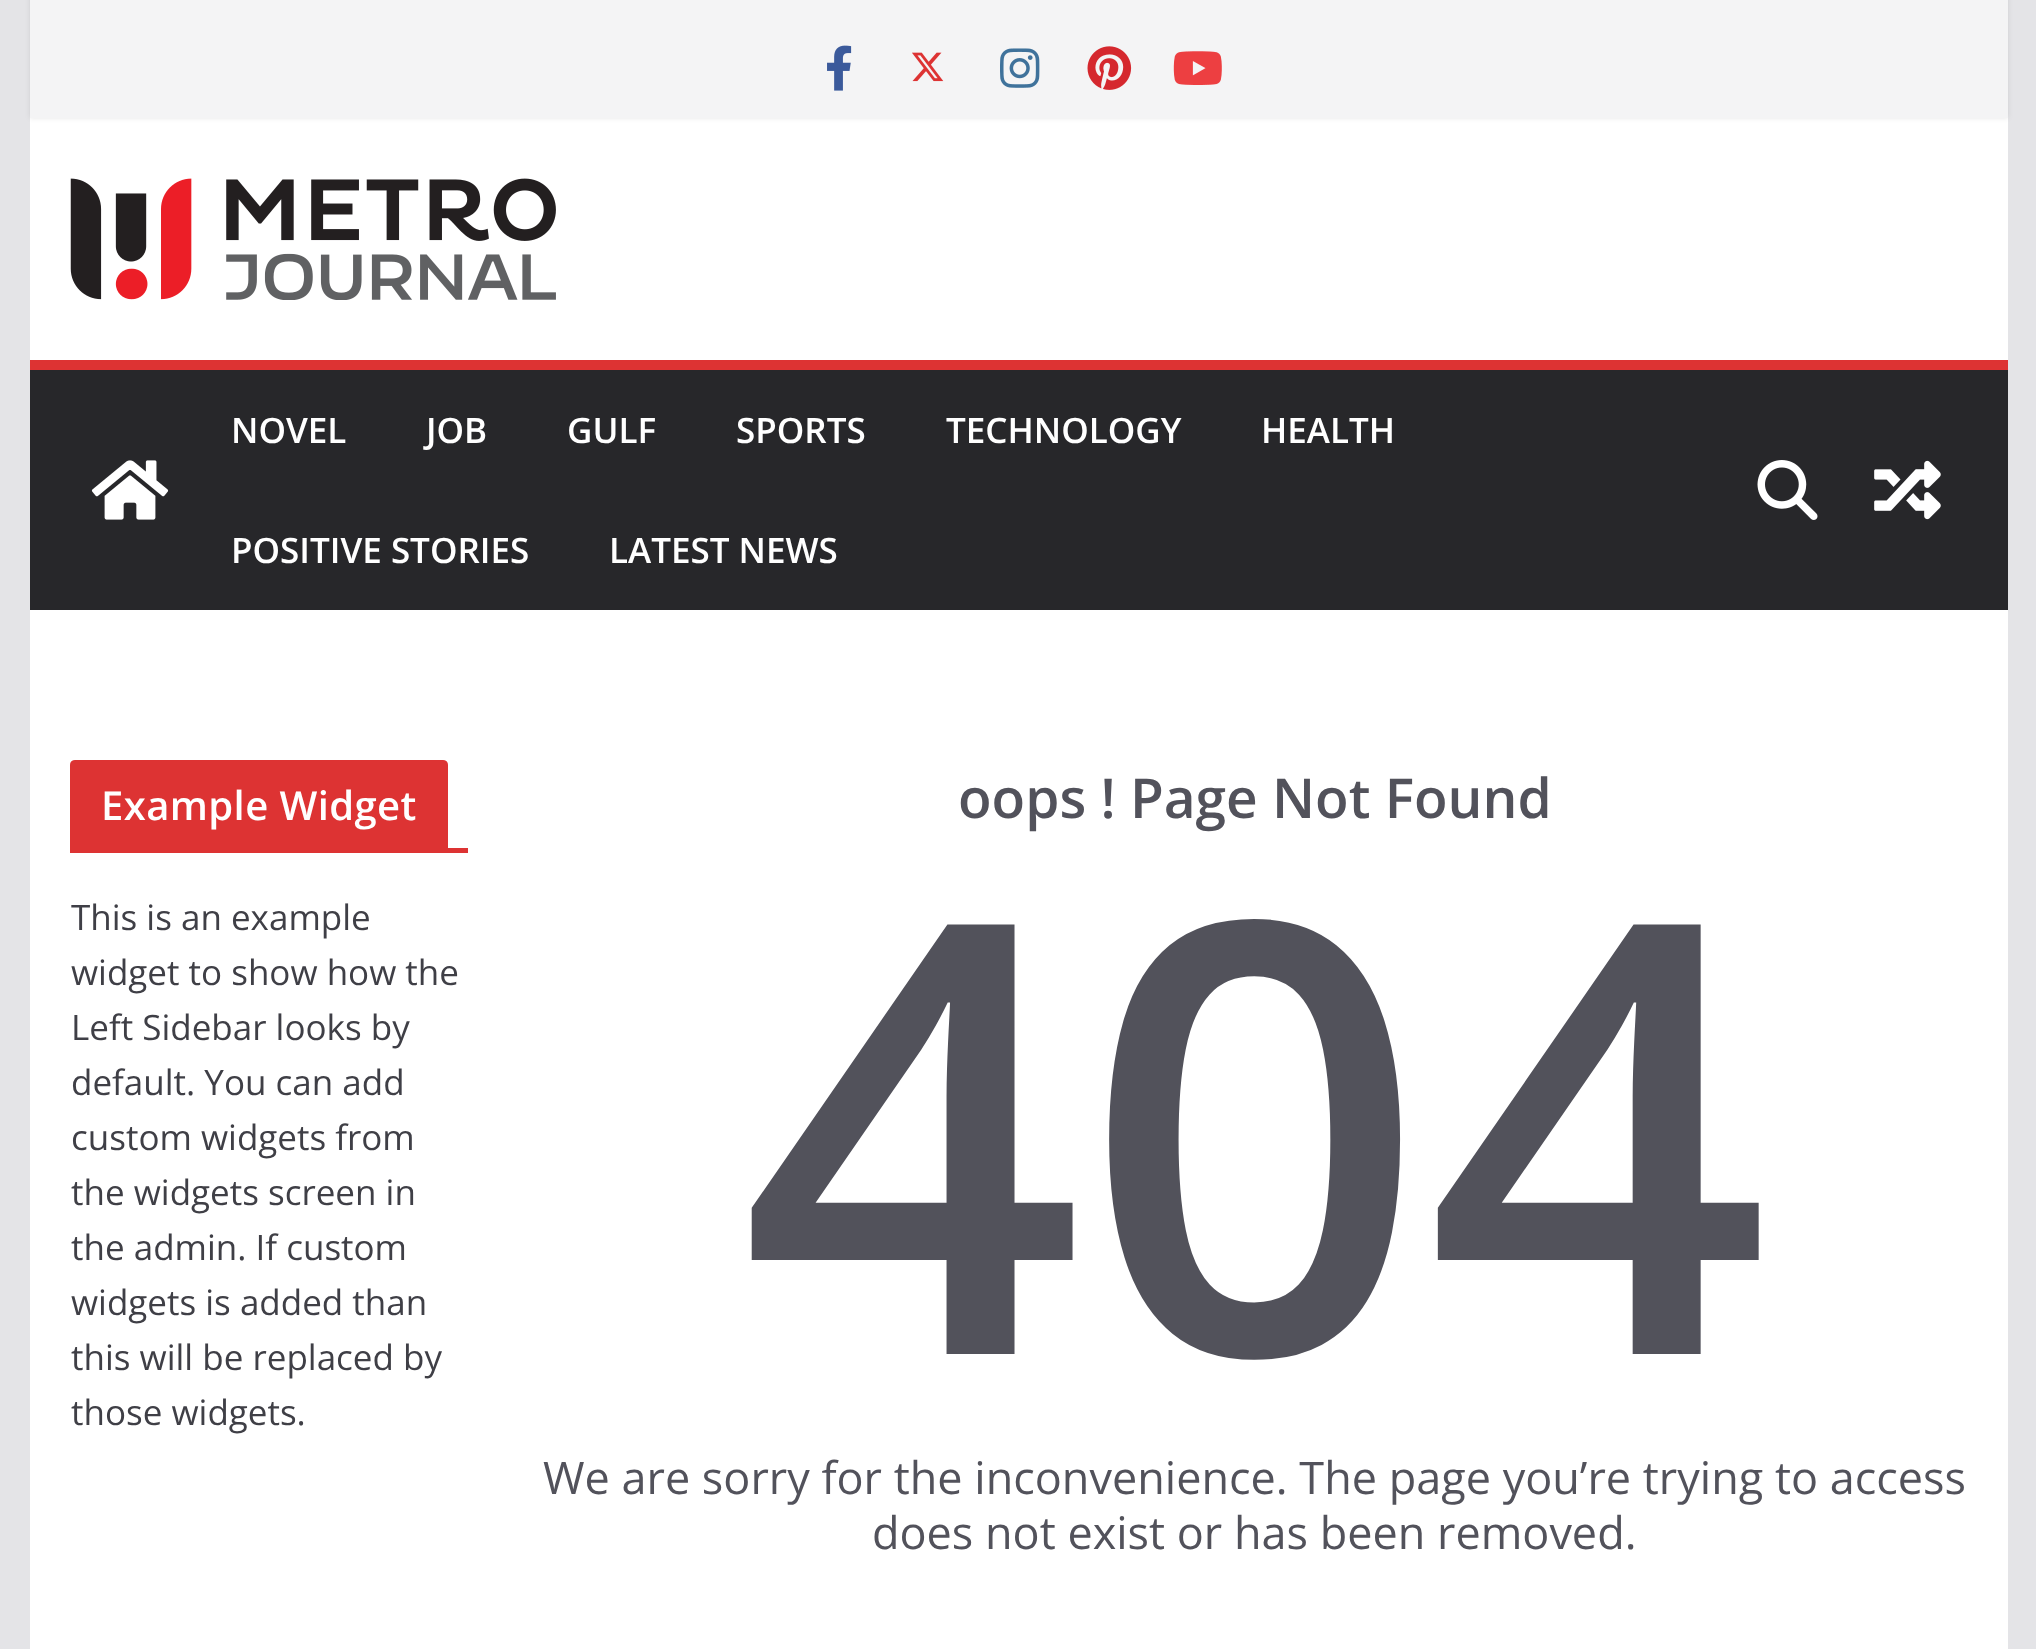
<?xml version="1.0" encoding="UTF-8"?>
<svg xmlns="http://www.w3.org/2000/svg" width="2036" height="1649">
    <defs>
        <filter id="blur1" x="-50%" y="-200%" width="200%" height="500%"><feGaussianBlur stdDeviation="2.5"/></filter>
    </defs>
    <rect width="100%" height="100%" fill="#E4E4E7"/>
    <rect x="30" y="118" width="1978" height="242" fill="#FFFFFF"/>
    <rect x="30" y="-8" width="1978" height="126" fill="#000000" fill-opacity="0.1" filter="url(#blur1)"/>
    <rect x="30" y="0" width="1978" height="118" fill="#F4F4F5"/>
    <image x="827" y="45" width="25" height="46" href="img_01.png"/>
    <image x="912" y="52" width="32" height="30" href="img_02.png"/>
    <image x="1000" y="48" width="40" height="40" href="img_03.png"/>
    <image x="1087" y="46" width="45" height="44" href="img_04.png"/>
    <image x="1173" y="51" width="49" height="34" href="img_05.png"/>
    <image x="70" y="178" width="486" height="122" href="img_06.png"/>
    <rect x="30" y="370" width="1978" height="240" fill="#27272A"/>
    <rect x="30" y="360" width="1978" height="10" fill="#DD3333"/>
    <image x="91" y="460" width="78" height="60" href="img_07.png"/>
    <text x="231" y="443" font-family="Open Sans" font-size="35" font-weight="600" fill="#FFFFFF">NOVEL</text>
    <text x="426" y="443" font-family="Open Sans" font-size="35" font-weight="600" fill="#FFFFFF">JOB</text>
    <text x="567" y="443" font-family="Open Sans" font-size="35" font-weight="600" fill="#FFFFFF">GULF</text>
    <text x="736" y="443" font-family="Open Sans" font-size="35" font-weight="600" fill="#FFFFFF">SPORTS</text>
    <text x="946" y="443" font-family="Open Sans" font-size="35" font-weight="600" fill="#FFFFFF">TECHNOLOGY</text>
    <text x="1261" y="443" font-family="Open Sans" font-size="35" font-weight="600" fill="#FFFFFF">HEALTH</text>
    <text x="231" y="563" font-family="Open Sans" font-size="35" font-weight="600" fill="#FFFFFF">POSITIVE STORIES</text>
    <text x="609" y="563" font-family="Open Sans" font-size="35" font-weight="600" fill="#FFFFFF">LATEST NEWS</text>
    <image x="1757" y="460" width="61" height="60" href="img_08.png"/>
    <image x="1874" y="460" width="67" height="60" href="img_09.png"/>
    <rect x="30" y="610" width="1978" height="1039" fill="#FFFFFF"/>
    <rect x="70" y="848" width="398" height="5" fill="#DD3333"/>
    <path d="M 75 760 H 443 C 446 760 448 762 448 765 V 848 H 70 V 765 C 70 762 72 760 75 760 Z" fill="#DD3333"/>
    <text x="101" y="820" font-family="Open Sans" font-size="40" font-weight="600" letter-spacing="0.4" fill="#FFFFFF">Example Widget</text>
    <text font-family="Open Sans" font-size="35" fill="#3F3F46">
        <tspan x="71" y="930">This is an example</tspan>
        <tspan x="71" y="985">widget to show how the</tspan>
        <tspan x="71" y="1040">Left Sidebar looks by</tspan>
        <tspan x="71" y="1095">default. You can add</tspan>
        <tspan x="71" y="1150">custom widgets from</tspan>
        <tspan x="71" y="1205">the widgets screen in</tspan>
        <tspan x="71" y="1260">the admin. If custom</tspan>
        <tspan x="71" y="1315">widgets is added than</tspan>
        <tspan x="71" y="1370">this will be replaced by</tspan>
        <tspan x="71" y="1425">those widgets.</tspan>
    </text>
    <text x="958" y="818" font-family="Open Sans" font-size="55" font-weight="600" fill="#52525B">oops ! Page Not Found</text>
    <text x="740" y="1354" font-family="Open Sans" font-size="600" font-weight="600" fill="#52525B">404</text>
    <text x="543" y="1494" font-family="Open Sans" font-size="45" fill="#52525B">We are sorry for the inconvenience. The page you’re trying to access</text>
    <text x="872" y="1549" font-family="Open Sans" font-size="45" fill="#52525B">does not exist or has been removed.</text>
</svg>
